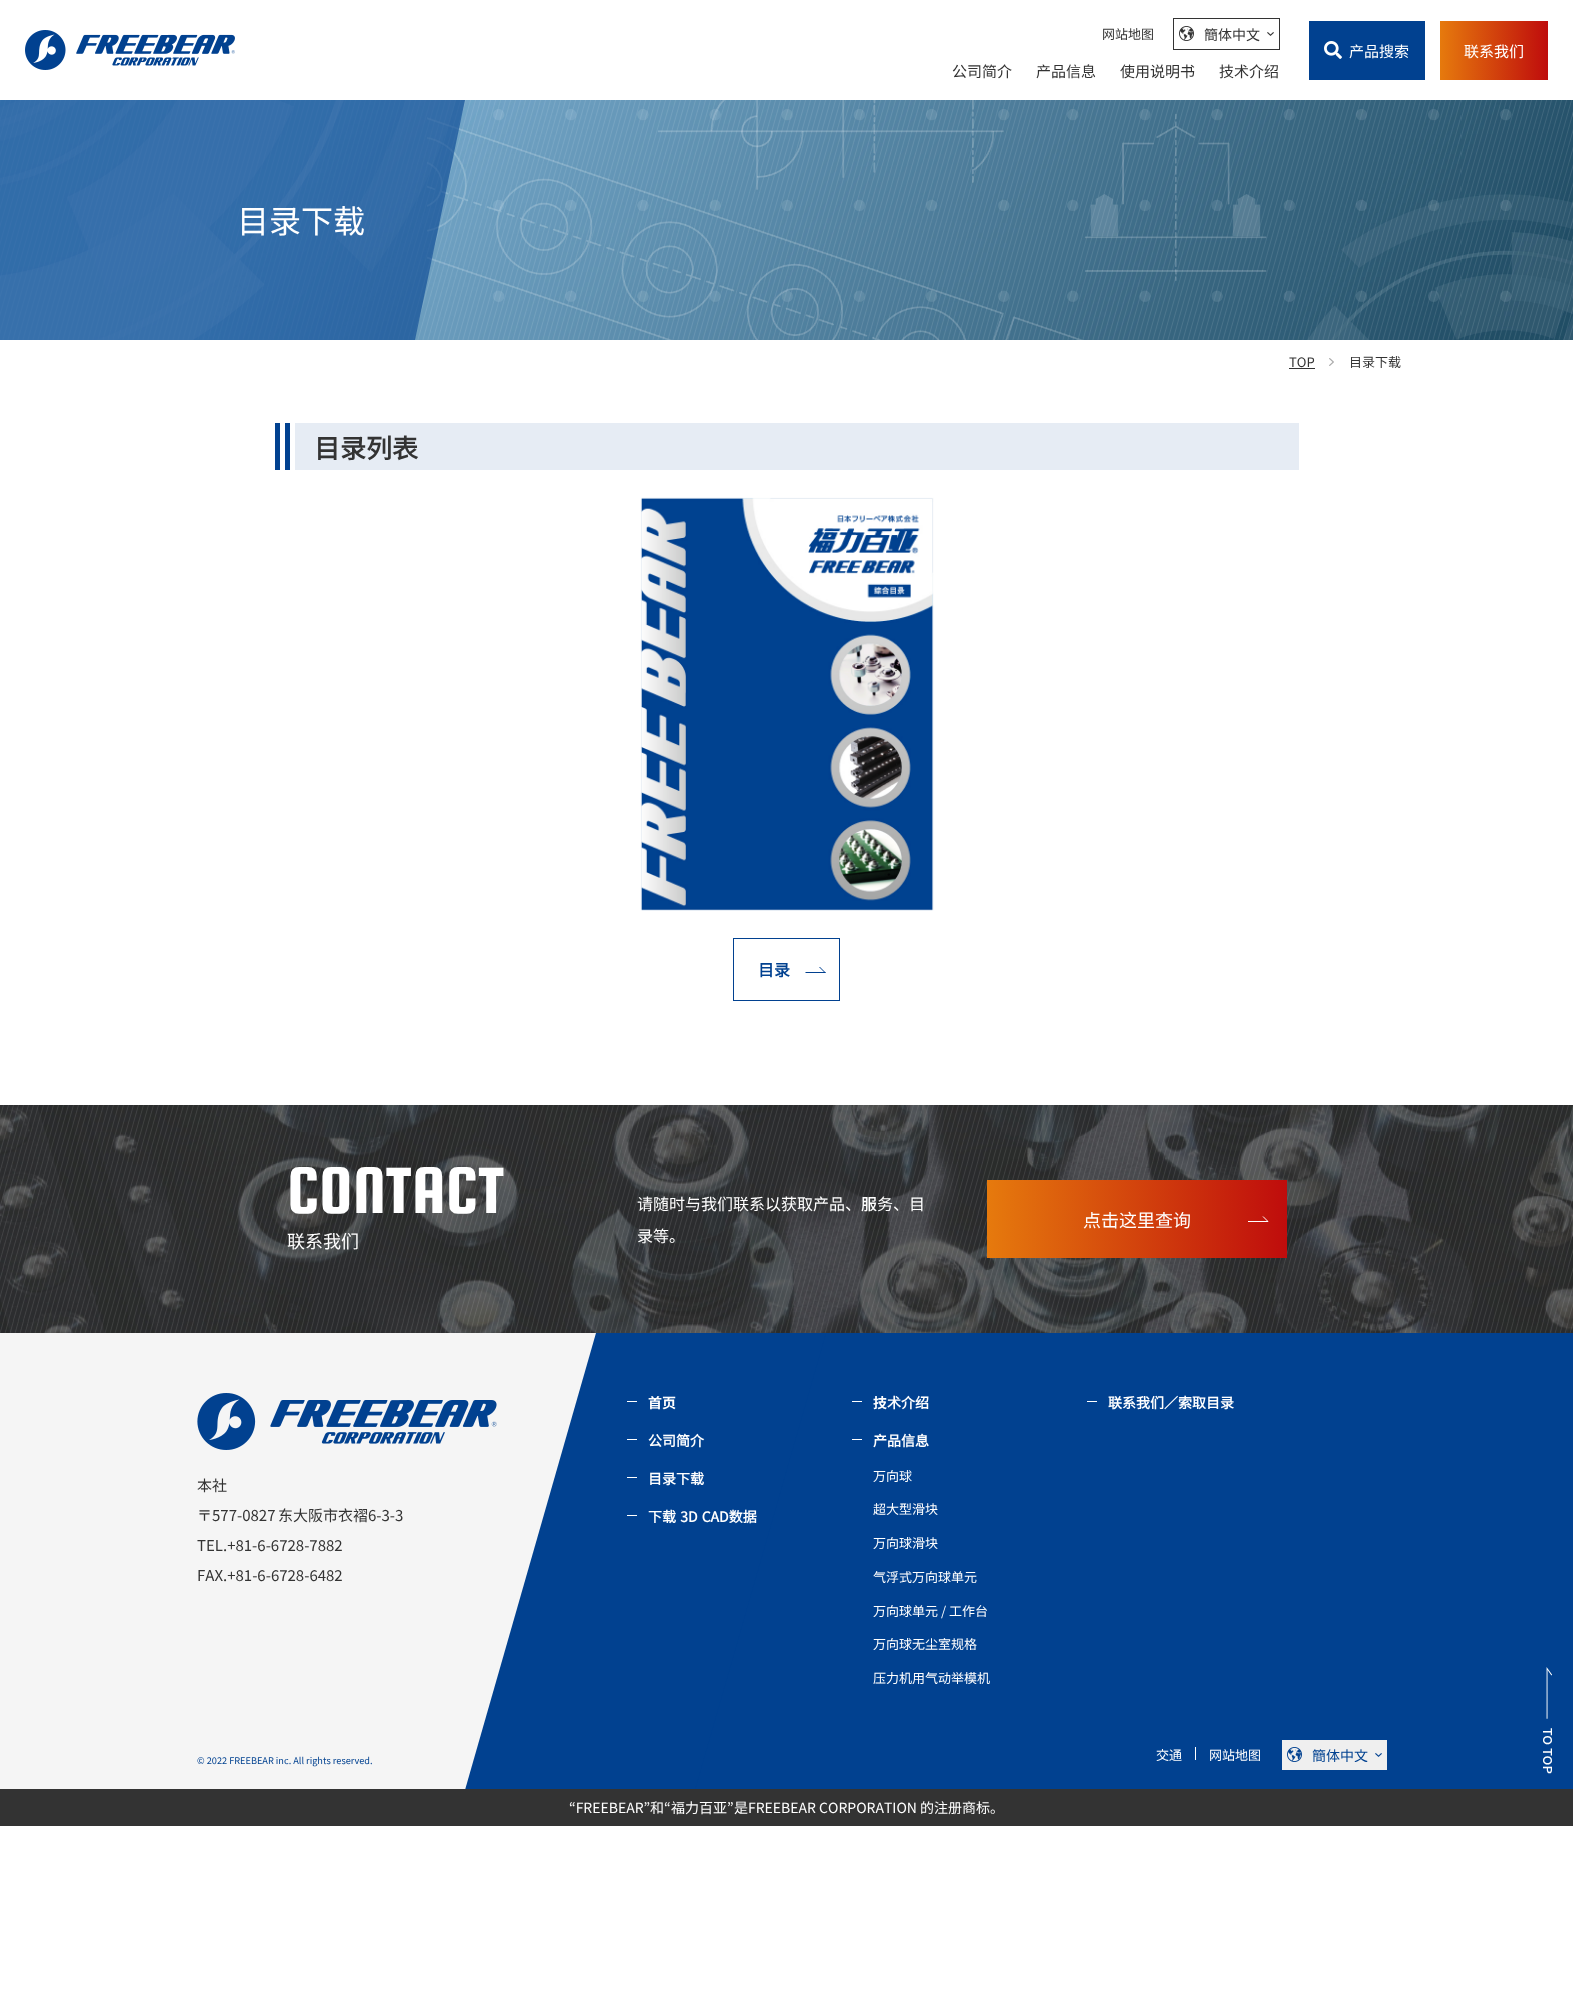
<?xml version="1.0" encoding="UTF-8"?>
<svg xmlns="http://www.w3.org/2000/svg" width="1573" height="1992">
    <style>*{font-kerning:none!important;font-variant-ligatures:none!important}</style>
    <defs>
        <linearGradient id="g1" gradientUnits="userSpaceOnUse" x1="1548" y1="51" x2="1440" y2="51"><stop offset="0" stop-color="#BF0C0C"/><stop offset="1" stop-color="#E67A0D"/></linearGradient>
        <linearGradient id="g2" gradientUnits="userSpaceOnUse" x1="1287" y1="1219" x2="987" y2="1219"><stop offset="0" stop-color="#BF0C0C"/><stop offset="1" stop-color="#E67A0D"/></linearGradient>
        <clipPath id="clip1"><rect x="1312" y="1748" width="75" height="14"/></clipPath>
    </defs>
    <rect width="100%" height="100%" fill="#FFFFFF"/>
    <image x="25" y="30" width="210" height="40" href="img_01.png"/>
    <text x="1102" y="39" font-family="Noto Sans CJK SC" font-size="13" fill="#333333">网站地图</text>
    <image x="1267" y="32" width="7" height="4" href="img_02.png"/>
    <image x="1179" y="26" width="15" height="15" href="img_03.png"/>
    <rect x="1173.5" y="18.5" width="106" height="31" fill="none" stroke="#333333"/>
    <text x="1204" y="40" font-family="Noto Sans JP" font-size="14" fill="#333333">簡体中文</text>
    <text x="952" y="77" font-family="Noto Sans CJK SC" font-size="15" fill="#333333">公司简介</text>
    <text x="1036" y="77" font-family="Noto Sans CJK SC" font-size="15" fill="#333333">产品信息</text>
    <text x="1120" y="77" font-family="Noto Sans CJK SC" font-size="15" fill="#333333">使用说明书</text>
    <text x="1219" y="77" font-family="Noto Sans JP" font-size="15" fill="#333333">技</text>
    <text x="1234" y="77" font-family="Noto Sans CJK SC" font-size="15" fill="#333333">术介绍</text>
    <rect x="1309" y="21" width="116" height="59" fill="#014190"/>
    <image x="1324" y="41" width="18" height="18" href="img_04.png"/>
    <text x="1349" y="57" font-family="Noto Sans CJK SC" font-size="15" fill="#FFFFFF">产品搜索</text>
    <rect x="1440" y="21" width="108" height="59" fill="url(#g1)"/>
    <text x="1464" y="57" font-family="Noto Sans CJK SC" font-size="15" fill="#FFFFFF">联系我们</text>
    <image x="0" y="100" width="1573" height="240" href="img_05.png"/>
    <path d="M 0 100 V 340 H 415 L 465 100 Z" fill="#014190" fill-opacity="0.6"/>
    <text x="237" y="233" font-family="Noto Sans CJK SC" font-size="32" fill="#FFFFFF">目录下载</text>
    <text x="1289" y="367" font-family="Noto Sans JP" font-size="13" fill="#333333">TOP</text>
    <rect x="1289" y="368" width="26" height="1" fill="#333333"/>
    <image x="1329" y="358" width="5" height="8" href="img_06.png"/>
    <text x="1349" y="367" font-family="Noto Sans CJK SC" font-size="13" fill="#333333">目录下载</text>
    <rect x="295" y="423" width="1004" height="47" fill="#E6ECF4"/>
    <rect x="275" y="423" width="5" height="47" fill="#014190"/>
    <rect x="285" y="423" width="5" height="47" fill="#014190"/>
    <text x="314" y="458" font-family="Noto Sans CJK SC" font-size="26" font-weight="700" fill="#333333">目录列表</text>
    <image x="640" y="497" width="294" height="414" href="img_07.png"/>
    <rect x="733.5" y="938.5" width="106" height="62" fill="none" stroke="#014190"/>
    <text x="758" y="976" font-family="Noto Sans CJK SC" font-size="16" font-weight="700" fill="#014190">目录</text>
    <path d="M 819 967 H 820 L 826 973 H 825 Z" fill="#014190"/>
    <path d="M 805 972 H 825 L 826 973 H 806 Z" fill="#014190"/>
    <image x="0" y="1105" width="1573" height="228" href="img_08.png"/>
    <text x="287" y="1213" font-family="Squada One" font-size="70" fill="#FFFFFF">CONTACT</text>
    <text x="287" y="1248" font-family="Noto Sans CJK SC" font-size="18" fill="#FFFFFF">联系我们</text>
    <text x="637" y="1210" font-family="Noto Sans CJK SC" font-size="16" fill="#FFFFFF">请随时与我们联系以获取产品、</text>
    <text x="861" y="1210" font-family="Noto Sans JP" font-size="16" font-weight="500" fill="#FFFFFF">服</text>
    <text x="877" y="1210" font-family="Noto Sans CJK SC" font-size="16" fill="#FFFFFF">务、目</text>
    <text x="637" y="1242" font-family="Noto Sans CJK SC" font-size="16" fill="#FFFFFF">录等。</text>
    <rect x="987" y="1180" width="300" height="78" fill="url(#g2)"/>
    <path d="M 1248 1221.5 H 1268 L 1263 1216.5" fill="none" stroke="#FFFFFF"/>
    <text x="1083" y="1227" font-family="Noto Sans CJK SC" font-size="18" fill="#FFFFFF">点击这里查询</text>
    <rect x="0" y="1333" width="596" height="456" fill="#F5F5F5"/>
    <rect x="695" y="1333" width="878" height="456" fill="#014190"/>
    <image x="197" y="1393" width="300" height="57" href="img_09.png"/>
    <text x="197" y="1491" font-family="Noto Sans JP" font-size="15" fill="#333333">本社</text>
    <text x="197" y="1521" font-family="Noto Sans JP" font-size="15" fill="#333333">〒577-0827</text>
    <text x="278" y="1521" font-family="Noto Sans CJK SC" font-size="15" fill="#333333">东大阪市衣褶6-3-3</text>
    <text x="197" y="1551" font-family="Noto Sans JP" font-size="15" fill="#333333">TEL.+81-6-6728-7882</text>
    <text x="197" y="1581" font-family="Noto Sans JP" font-size="15" fill="#333333">FAX.+81-6-6728-6482</text>
    <text x="197" y="1764" font-family="Noto Sans JP" font-size="9.2" fill="#014190">© 2022 FREEBEAR inc. All rights reserved.</text>
    <path d="M 596 1333 H 826 L 695 1790 H 465 Z" fill="#014190"/>
    <rect x="627" y="1401" width="10" height="1" fill="#FFFFFF"/>
    <text x="648" y="1408" font-family="Noto Sans JP" font-size="14" font-weight="700" fill="#FFFFFF">首页</text>
    <rect x="627" y="1439" width="10" height="1" fill="#FFFFFF"/>
    <text x="648" y="1446" font-family="Noto Sans CJK SC" font-size="14" font-weight="700" fill="#FFFFFF">公司简介</text>
    <rect x="627" y="1477" width="10" height="1" fill="#FFFFFF"/>
    <text x="648" y="1484" font-family="Noto Sans CJK SC" font-size="14" font-weight="700" fill="#FFFFFF">目录下载</text>
    <rect x="627" y="1515" width="10" height="1" fill="#FFFFFF"/>
    <text x="648" y="1522" word-spacing="1" font-family="Noto Sans CJK SC" font-size="14" font-weight="700" fill="#FFFFFF">下载 3D CAD数据</text>
    <rect x="852" y="1401" width="10" height="1" fill="#FFFFFF"/>
    <text x="873" y="1408" font-family="Noto Sans JP" font-size="14" font-weight="700" fill="#FFFFFF">技</text>
    <text x="887" y="1408" font-family="Noto Sans CJK SC" font-size="14" font-weight="700" fill="#FFFFFF">术介绍</text>
    <rect x="852" y="1439" width="10" height="1" fill="#FFFFFF"/>
    <text x="873" y="1446" font-family="Noto Sans CJK SC" font-size="14" font-weight="700" fill="#FFFFFF">产品信息</text>
    <text x="873" y="1481" font-family="Noto Sans JP" font-size="13" fill="#FFFFFF">万向球</text>
    <text x="873" y="1514" font-family="Noto Sans CJK SC" font-size="13" fill="#FFFFFF">超大型滑块</text>
    <text x="873" y="1548" font-family="Noto Sans CJK SC" font-size="13" fill="#FFFFFF">万向球滑块</text>
    <text x="873" y="1582" font-family="Noto Sans CJK SC" font-size="13" fill="#FFFFFF">气浮式万向球单元</text>
    <text x="873" y="1616" font-family="Noto Sans CJK SC" font-size="13" fill="#FFFFFF">万向球单元 / 工作台</text>
    <text x="873" y="1649" font-family="Noto Sans CJK SC" font-size="13" fill="#FFFFFF">万向球无尘室规格</text>
    <text x="873" y="1683" font-family="Noto Sans CJK SC" font-size="13" fill="#FFFFFF">压力机用气动举模机</text>
    <rect x="1087" y="1401" width="10" height="1" fill="#FFFFFF"/>
    <text x="1108" y="1408" font-family="Noto Sans CJK SC" font-size="14" font-weight="700" fill="#FFFFFF">联系我们／索取目录</text>
    <text x="1156" y="1760" font-family="Noto Sans JP" font-size="13" fill="#FFFFFF">交通</text>
    <rect x="1195" y="1747" width="1" height="13" fill="#FFFFFF"/>
    <text x="1209" y="1760" font-family="Noto Sans CJK SC" font-size="13" fill="#FFFFFF">网站地图</text>
    <rect x="1282" y="1740" width="105" height="30" fill="#EFEFEF"/>
    <image x="1375" y="1753" width="7" height="4" href="img_10.png"/>
    <image x="1287" y="1747" width="15" height="15" href="img_11.png"/>
    <g clip-path="url(#clip1)">
        <text x="1312" y="1761" font-family="Noto Sans JP" font-size="14" fill="#014190">簡体中文</text>
    </g>
    <image x="1543" y="1667" width="9" height="107" href="img_12.png"/>
    <rect x="0" y="1789" width="1573" height="37" fill="#333333"/>
    <text x="569" y="1813" font-family="Noto Sans JP" font-size="14" fill="#FFFFFF">“FREEBEAR”</text>
    <text x="650" y="1813" font-family="Noto Sans CJK SC" font-size="14" fill="#FFFFFF">和</text>
    <text x="664" y="1813" font-family="Noto Sans JP" font-size="14" fill="#FFFFFF">“</text>
    <text x="671" y="1813" font-family="Noto Sans CJK SC" font-size="14" fill="#FFFFFF">福力百亚</text>
    <text x="727" y="1813" font-family="Noto Sans JP" font-size="14" fill="#FFFFFF">”</text>
    <text x="734" y="1813" font-family="Noto Sans CJK SC" font-size="14" fill="#FFFFFF">是</text>
    <text x="748" y="1813" font-family="Noto Sans JP" font-size="14" fill="#FFFFFF">FREEBEAR CORPORATION</text>
    <text x="920" y="1813" font-family="Noto Sans CJK SC" font-size="14" fill="#FFFFFF">的注册商标。</text>
</svg>
